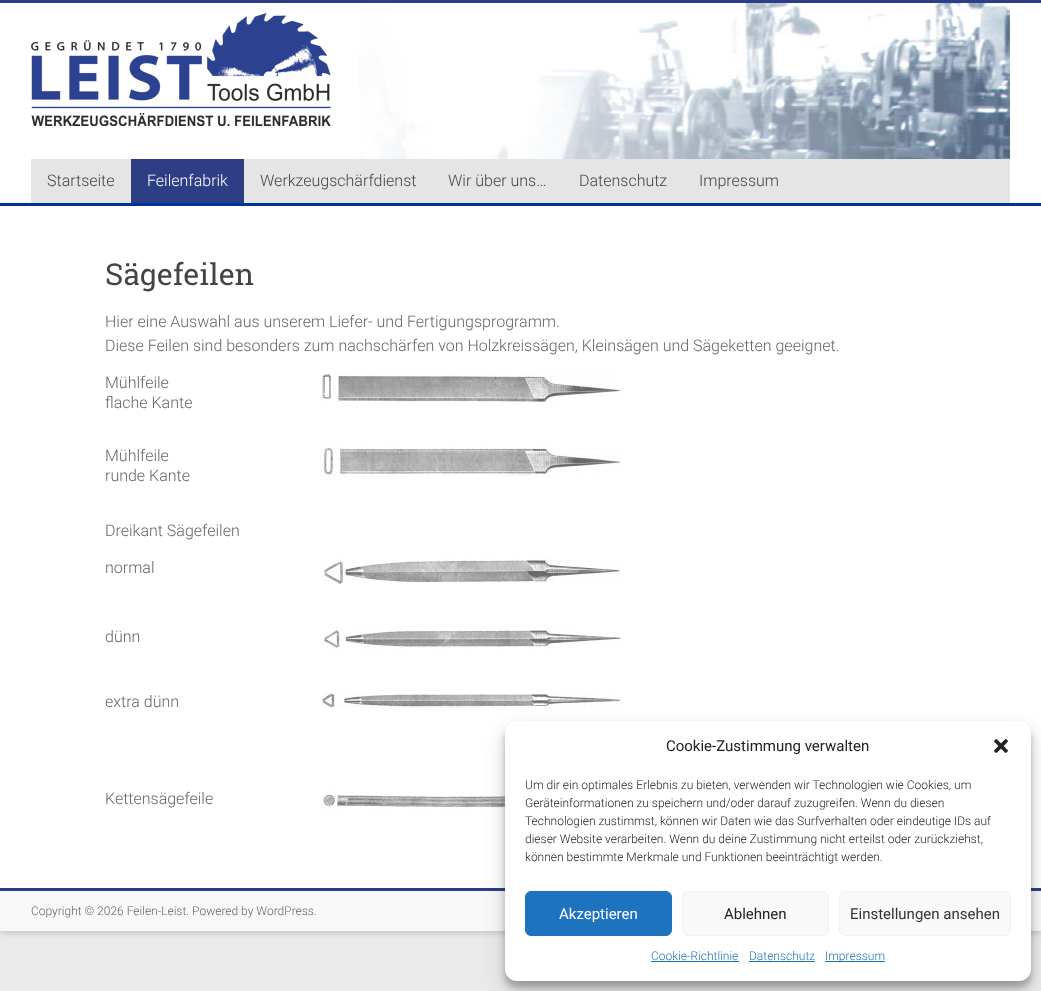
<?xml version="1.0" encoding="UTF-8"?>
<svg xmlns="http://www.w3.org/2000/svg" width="1041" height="991">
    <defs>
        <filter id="blur1" x="-50%" y="-200%" width="200%" height="500%"><feGaussianBlur stdDeviation="3"/></filter>
        <filter id="blur2" x="-50%" y="-200%" width="200%" height="500%"><feGaussianBlur stdDeviation="10"/></filter>
    </defs>
    <rect width="100%" height="100%" fill="#EAEAEA"/>
    <rect x="0" y="2" width="1041" height="931" fill="#646464" fill-opacity="0.3" filter="url(#blur1)"/>
    <rect x="0" y="3" width="1041" height="885" fill="#FFFFFF"/>
    <rect x="0" y="0" width="1041" height="3" fill="#2E3E84"/>
    <image x="359" y="3" width="651" height="156" href="img_01.png"/>
    <image x="31" y="13" width="300" height="113" href="img_02.png"/>
    <rect x="31" y="159" width="979" height="44" fill="#E5E5E5"/>
    <text x="47" y="186" font-family="Roboto" font-size="16" font-weight="300" fill="#444444">Startseite</text>
    <rect x="131" y="159" width="113" height="44" fill="#2E3E84"/>
    <text x="147" y="186" font-family="Roboto" font-size="16" font-weight="300" fill="#FFFFFF">Feilenfabrik</text>
    <text x="260" y="186" font-family="Roboto" font-size="16" font-weight="300" fill="#444444">Werkzeugschärfdienst</text>
    <text x="448" y="186" font-family="Roboto" font-size="16" font-weight="300" fill="#444444">Wir über uns…</text>
    <text x="579" y="186" font-family="Roboto" font-size="16" font-weight="300" fill="#444444">Datenschutz</text>
    <text x="699" y="186" font-family="Roboto" font-size="16" font-weight="300" fill="#444444">Impressum</text>
    <rect x="0" y="203" width="1041" height="3" fill="#003399"/>
    <text x="105" y="285" font-family="Roboto Slab" font-size="30" fill="#444444">Sägefeilen</text>
    <text font-family="Roboto" font-size="16" font-weight="300" fill="#666666">
        <tspan x="105" y="327">Hier eine Auswahl aus unserem Liefer- und Fertigungsprogramm.</tspan>
        <tspan x="105" y="351">Diese Feilen sind besonders zum nachschärfen von Holzkreissägen, Kleinsägen und Sägeketten geeignet.</tspan>
    </text>
    <text font-family="Roboto" font-size="16" font-weight="300" fill="#666666">
        <tspan x="105" y="388">Mühlfeile</tspan>
        <tspan x="105" y="408">flache Kante</tspan>
    </text>
    <image x="321" y="373" width="300" height="31" href="img_03.png"/>
    <text font-family="Roboto" font-size="16" font-weight="300" fill="#666666">
        <tspan x="105" y="461">Mühlfeile</tspan>
        <tspan x="105" y="481">runde Kante</tspan>
    </text>
    <image x="321" y="446" width="300" height="31" href="img_04.png"/>
    <text x="105" y="536" font-family="Roboto" font-size="16" font-weight="300" fill="#666666">Dreikant Sägefeilen</text>
    <text x="105" y="573" font-family="Roboto" font-size="16" font-weight="300" fill="#666666">normal</text>
    <image x="321" y="558" width="300" height="26" href="img_05.png"/>
    <text x="105" y="642" font-family="Roboto" font-size="16" font-weight="300" fill="#666666">dünn</text>
    <image x="321" y="627" width="300" height="23" href="img_06.png"/>
    <text x="105" y="707" font-family="Roboto" font-size="16" font-weight="300" fill="#666666">extra dünn</text>
    <image x="321" y="692" width="300" height="16" href="img_07.png"/>
    <text x="105" y="804" font-family="Roboto" font-size="16" font-weight="300" fill="#666666">Kettensägefeile</text>
    <image x="321" y="790" width="184" height="21" href="img_08.png"/>
    <rect x="0" y="891" width="1041" height="40" fill="#F8F8F8"/>
    <rect x="0" y="888" width="1041" height="3" fill="#2E3E84"/>
    <text x="31" y="915" font-family="Roboto" font-size="12" font-weight="300" fill="#666666">Copyright © 2026 Feilen-Leist. Powered by WordPress.</text>
    <rect x="505" y="727" width="526" height="260" rx="12" fill="#000000" fill-opacity="0.23" filter="url(#blur1)"/>
    <rect x="505" y="731" width="526" height="260" rx="12" fill="#000000" fill-opacity="0.19" filter="url(#blur2)"/>
    <rect x="505" y="721" width="526" height="260" rx="12" fill="#FFFFFF"/>
    <text x="666" y="751" font-family="Roboto" font-size="15" fill="#222222">Cookie-Zustimmung verwalten</text>
    <image x="994" y="739" width="14" height="14" href="img_09.png"/>
    <text font-family="Roboto" font-size="12" font-weight="300" fill="#222222">
        <tspan x="525" y="789">Um dir ein optimales Erlebnis zu bieten, verwenden wir Technologien wie Cookies, um</tspan>
        <tspan x="525" y="807">Geräteinformationen zu speichern und/oder darauf zuzugreifen. Wenn du diesen</tspan>
        <tspan x="525" y="825">Technologien zustimmst, können wir Daten wie das Surfverhalten oder eindeutige IDs auf</tspan>
        <tspan x="525" y="843">dieser Website verarbeiten. Wenn du deine Zustimmung nicht erteilst oder zurückziehst,</tspan>
        <tspan x="525" y="861">können bestimmte Merkmale und Funktionen beeinträchtigt werden.</tspan>
    </text>
    <rect x="525.5" y="891.5" width="146" height="44" rx="5.5" fill="#1E73BE" stroke="#1E73BE"/>
    <text x="559" y="919" font-family="Roboto" font-size="15" fill="#FFFFFF">Akzeptieren</text>
    <rect x="682.5" y="891.5" width="146" height="44" rx="5.5" fill="#F9F9F9" stroke="#F2F2F2"/>
    <text x="724" y="919" font-family="Roboto" font-size="15" fill="#222222">Ablehnen</text>
    <rect x="839.5" y="891.5" width="171" height="44" rx="5.5" fill="#F9F9F9" stroke="#F2F2F2"/>
    <text x="850" y="919" font-family="Roboto" font-size="15" fill="#333333">Einstellungen ansehen</text>
    <text x="651" y="960" font-family="Roboto" font-size="12" font-weight="300" fill="#1E73BE">Cookie-Richtlinie</text>
    <rect x="651" y="961" width="88" height="1" fill="#1E73BE"/>
    <text x="749" y="960" font-family="Roboto" font-size="12" font-weight="300" fill="#1E73BE">Datenschutz</text>
    <rect x="749" y="961" width="66" height="1" fill="#1E73BE"/>
    <rect x="825" y="961" width="60" height="1" fill="#1E73BE"/>
    <text x="825" y="960" font-family="Roboto" font-size="12" font-weight="300" fill="#1E73BE">Impressum</text>
</svg>
